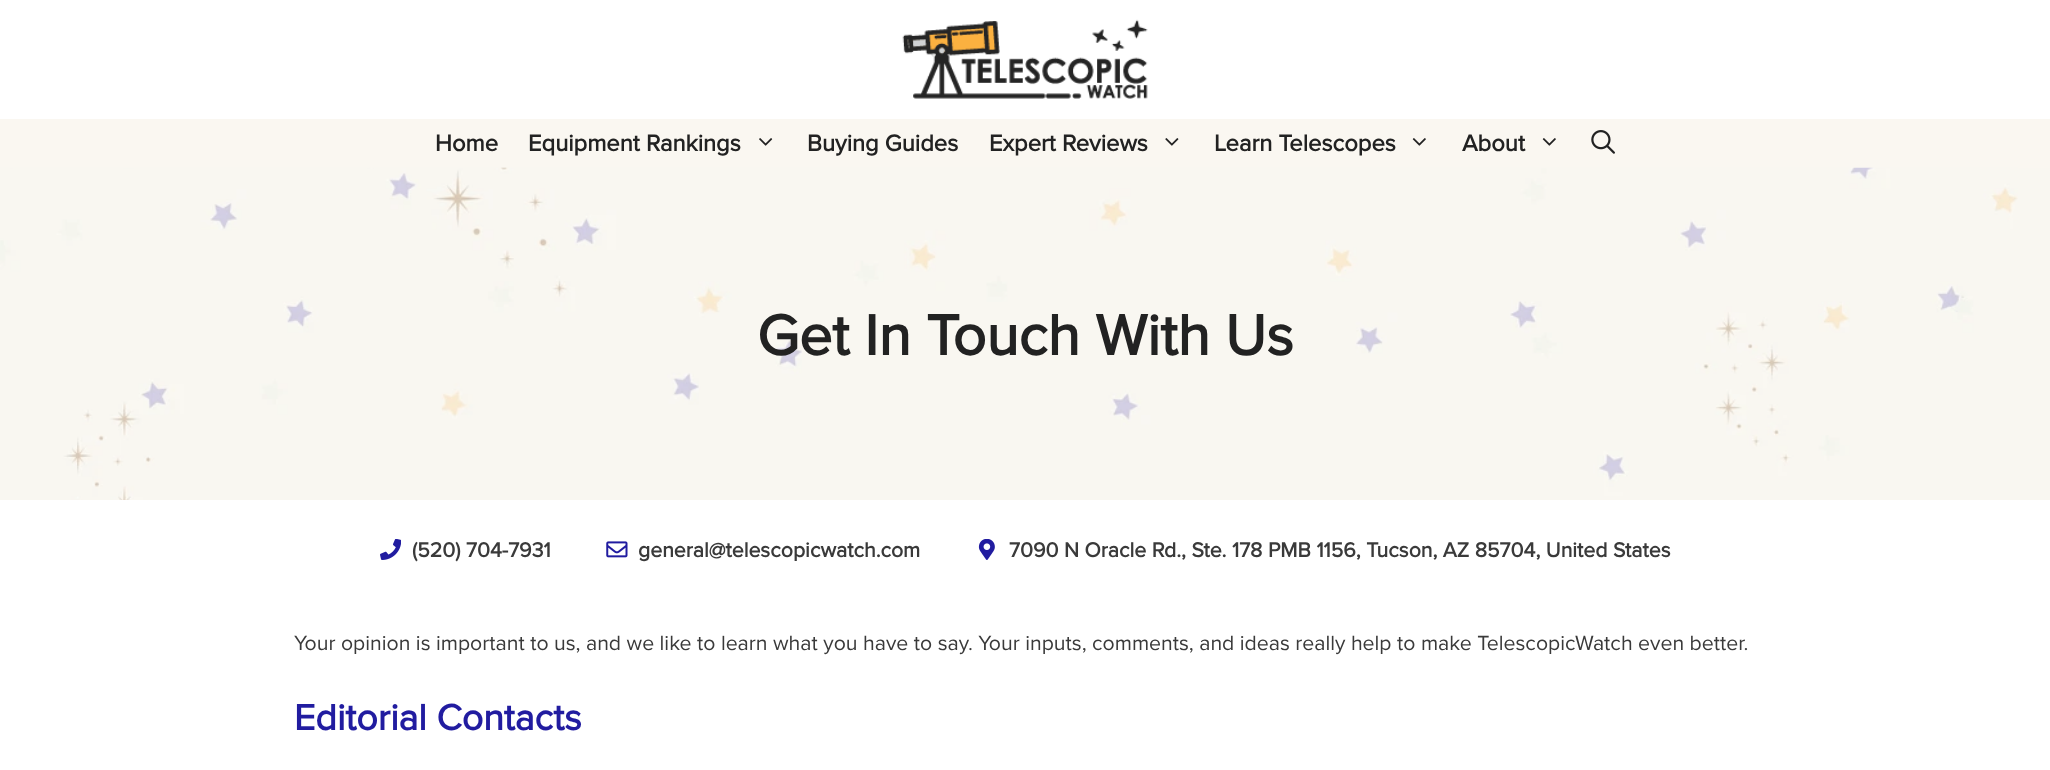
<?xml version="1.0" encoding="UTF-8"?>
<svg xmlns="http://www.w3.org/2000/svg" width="2050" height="770">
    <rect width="100%" height="100%" fill="#FFFFFF"/>
    <image x="902" y="19" width="246" height="80" href="img_01.png"/>
    <rect x="0" y="119" width="2050" height="49" fill="#FAF7F1"/>
    <text x="435" y="151" font-family="Proxima Nova" font-size="23.75" font-weight="700" fill="#222222">Home</text>
    <text x="528" y="151" font-family="Proxima Nova" font-size="23.75" font-weight="700" fill="#222222">Equipment Rankings</text>
    <image x="759" y="138" width="14" height="8" href="img_02.png"/>
    <text x="807" y="151" font-family="Proxima Nova" font-size="23.75" font-weight="700" fill="#222222">Buying Guides</text>
    <text x="989" y="151" font-family="Proxima Nova" font-size="23.75" font-weight="700" fill="#222222">Expert Reviews</text>
    <image x="1165" y="138" width="14" height="8" href="img_03.png"/>
    <text x="1214" y="151" font-family="Proxima Nova" font-size="23.75" font-weight="700" fill="#222222">Learn Telescopes</text>
    <image x="1412" y="138" width="14" height="8" href="img_04.png"/>
    <text x="1462" y="151" font-family="Proxima Nova" font-size="23.75" font-weight="700" fill="#222222">About</text>
    <image x="1542" y="138" width="14" height="8" href="img_04.png"/>
    <image x="1591" y="130" width="24" height="24" href="img_05.png"/>
    <rect x="0" y="168" width="2050" height="332" fill="#F9F7F1"/>
    <image x="0" y="167" width="2018" height="333" href="img_06.png"/>
    <text x="757" y="355" font-family="Proxima Nova" font-size="58.75" font-weight="700" fill="#222222">Get In Touch With Us</text>
    <image x="380" y="539" width="21" height="21" href="img_07.png"/>
    <text x="412" y="557" font-family="Proxima Nova" font-size="21.25" font-weight="700" fill="#3A3A3A">(520) 704-7931</text>
    <image x="606" y="541" width="22" height="17" href="img_08.png"/>
    <text x="638" y="557" font-family="Proxima Nova" font-size="21.25" font-weight="700" fill="#3A3A3A">general@telescopicwatch.com</text>
    <image x="978" y="539" width="17" height="21" href="img_09.png"/>
    <text x="1009" y="557" font-family="Proxima Nova" font-size="21.25" font-weight="700" fill="#3A3A3A">7090 N Oracle Rd., Ste. 178 PMB 1156, Tucson, AZ 85704, United States</text>
    <text x="294" y="650" font-family="Proxima Nova" font-size="21.25" fill="#3A3A3A">Your opinion is important to us, and we like to learn what you have to say. Your inputs, comments, and ideas really help to make TelescopicWatch even better.</text>
    <text x="294" y="730" font-family="Proxima Nova" font-size="37.5" font-weight="700" fill="#211CA0">Editorial Contacts</text>
</svg>
